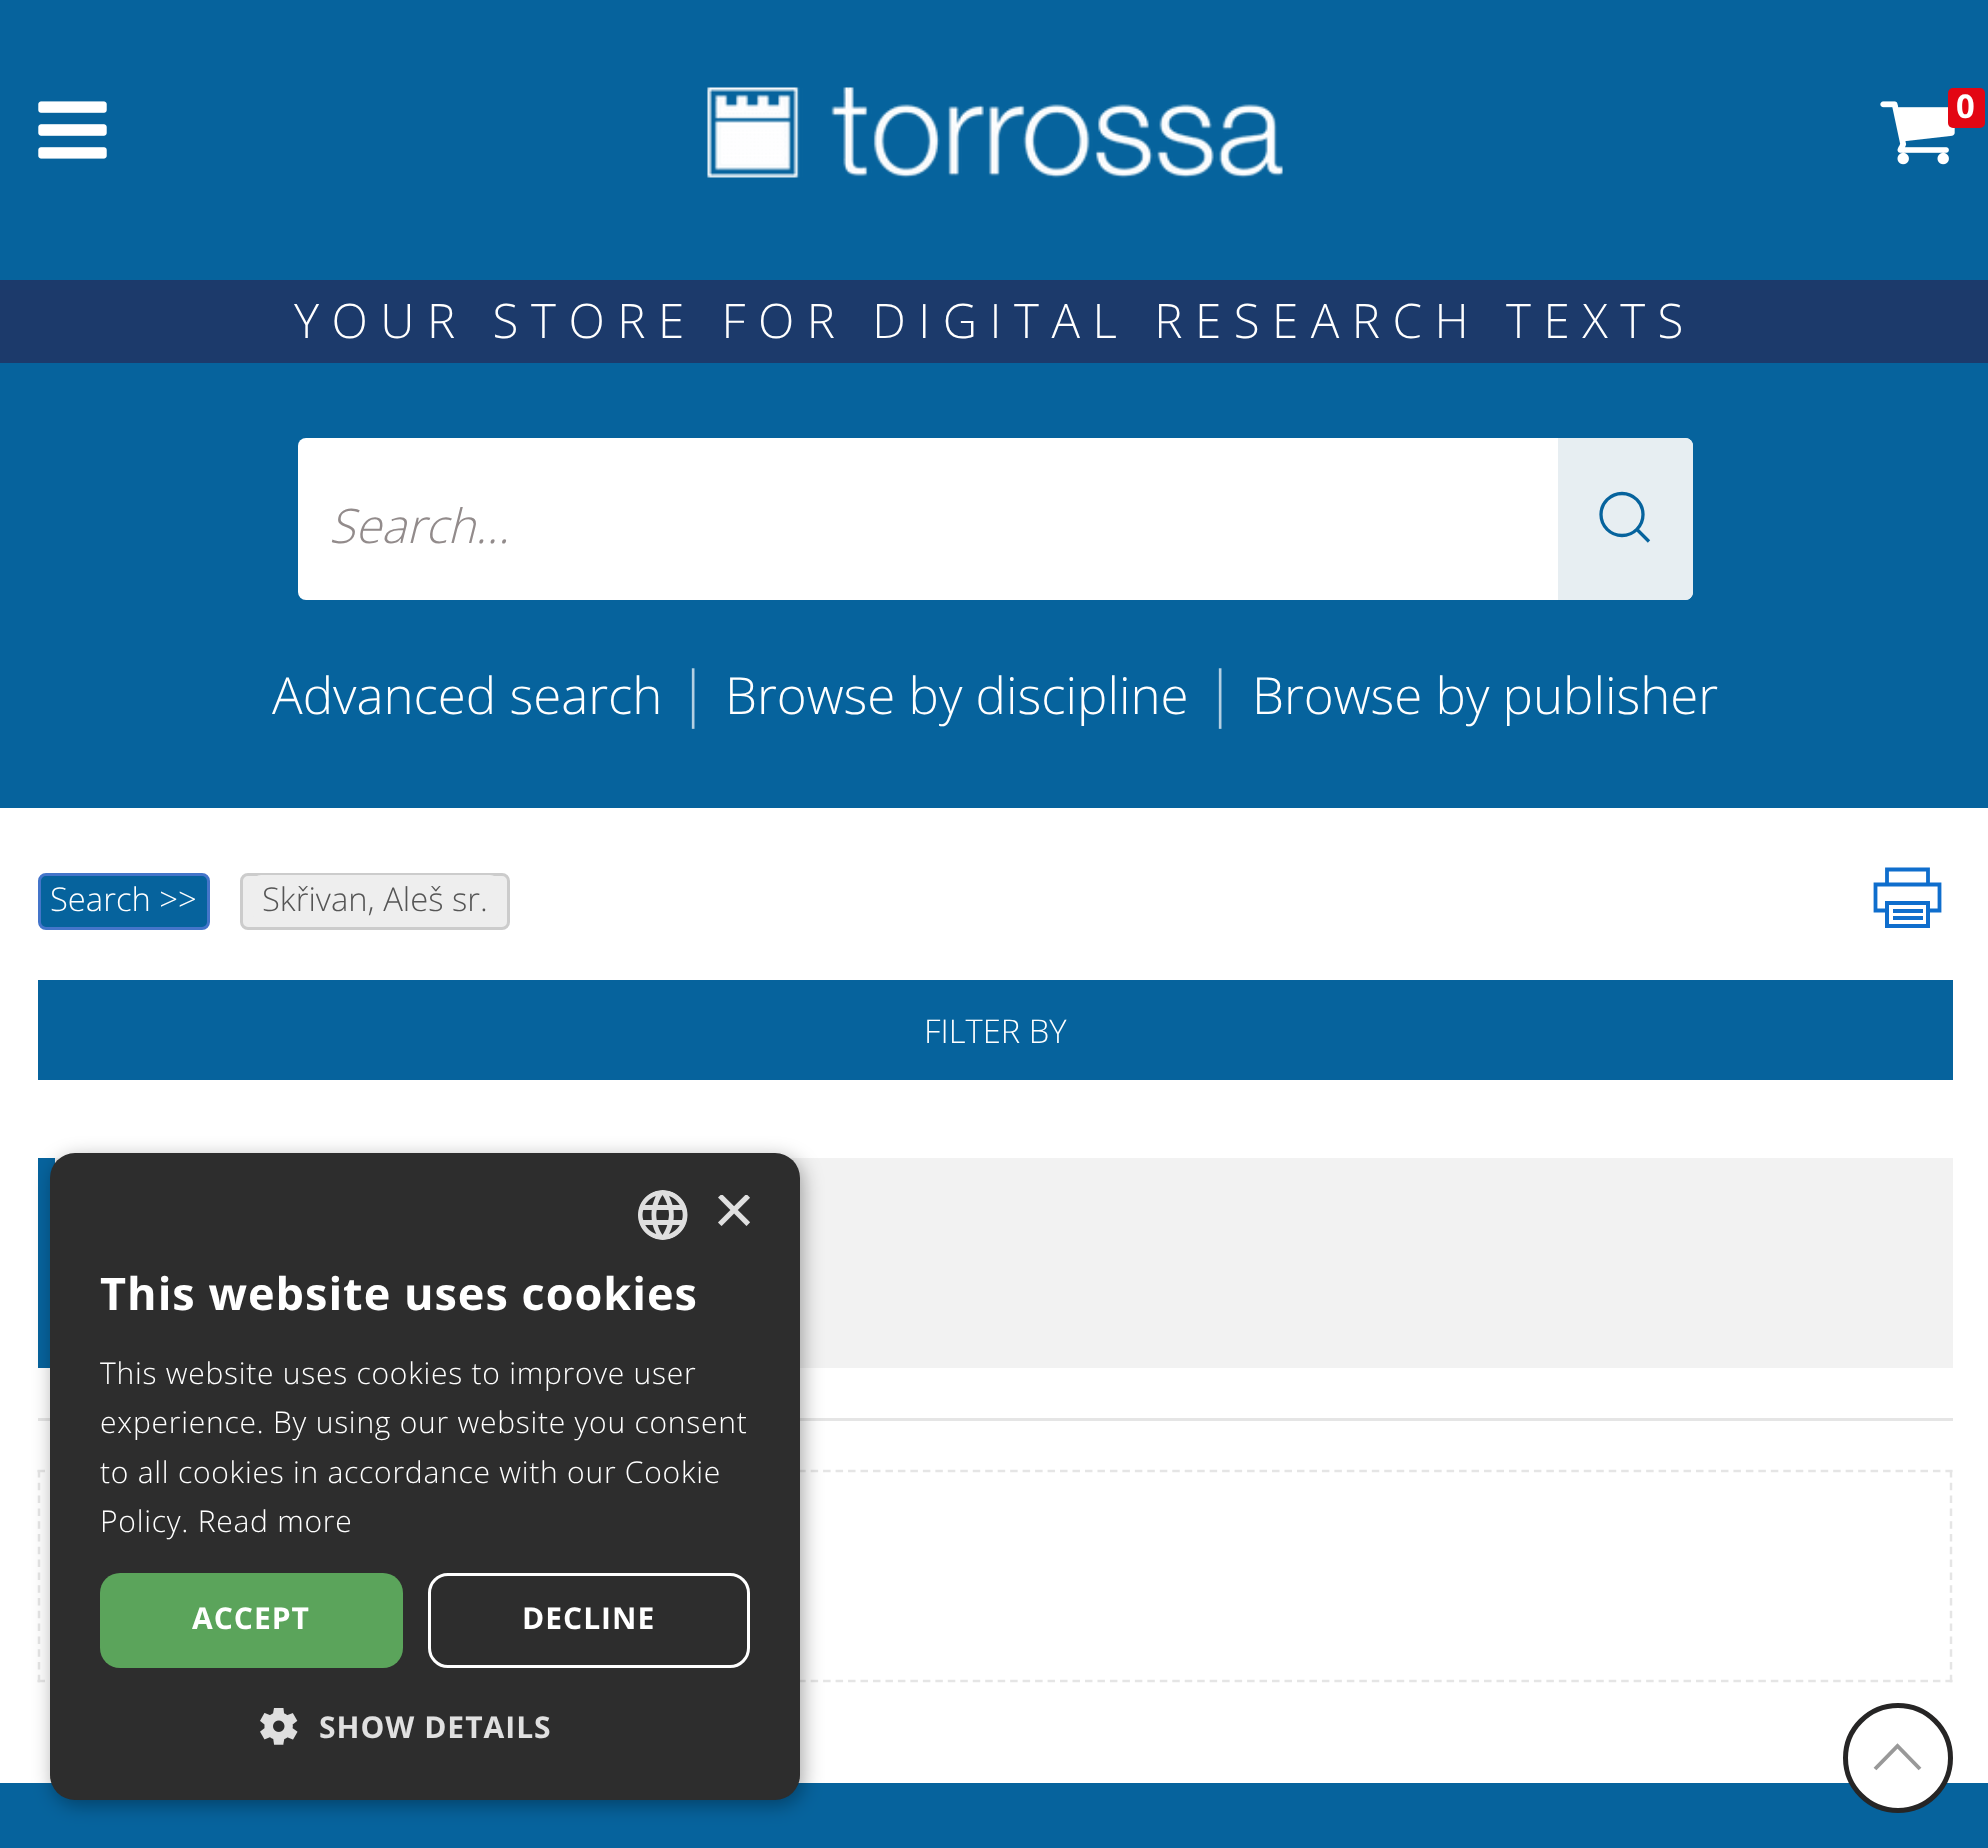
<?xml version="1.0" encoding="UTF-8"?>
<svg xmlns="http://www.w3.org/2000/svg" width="1988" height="1848">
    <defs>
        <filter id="blur1" x="-50%" y="-200%" width="200%" height="500%"><feGaussianBlur stdDeviation="10"/></filter>
        <clipPath id="clip1"><rect x="713" y="1195" width="37" height="38"/></clipPath>
    </defs>
    <rect width="100%" height="100%" fill="#FFFFFF"/>
    <rect x="0" y="0" width="1988" height="280" fill="#06639D"/>
    <image x="38" y="101" width="69" height="58" href="img_01.png"/>
    <image x="707" y="87" width="576" height="91" href="img_02.png"/>
    <image x="1880" y="101" width="75" height="64" href="img_03.png"/>
    <rect x="1948" y="88" width="37" height="40" rx="5" fill="#E30613"/>
    <text x="1956" y="118" font-family="Open Sans" font-size="32.75" font-weight="700" fill="#FFFFFF">0</text>
    <rect x="0" y="280" width="1988" height="83" fill="#1C3A6B"/>
    <text x="294" y="338" font-family="Open Sans" font-size="47.5" font-weight="300" letter-spacing="12.5" fill="#FFFFFF">YOUR STORE FOR DIGITAL RESEARCH TEXTS</text>
    <rect x="0" y="363" width="1988" height="445" fill="#06639D"/>
    <rect x="298" y="438" width="1395" height="162" rx="8" fill="#FFFFFF"/>
    <text x="329" y="543" font-family="Open Sans" font-size="47.5" font-weight="300" font-style="italic" fill="#928B8B">Search...</text>
    <path d="M 1558 438 H 1685 C 1689.5 438 1693 441.5 1693 446 V 592 C 1693 596.5 1689.5 600 1685 600 H 1558 Z" fill="#E7EEF2"/>
    <circle cx="1622" cy="514.5" r="21" fill="none" stroke="#06639D" stroke-width="3.3"/>
    <path d="M 1637 529.5 L 1649 541.5 Z" fill="none" stroke="#06639D" stroke-width="3.3"/>
    <text x="272" y="714" font-family="Open Sans" font-size="51" font-weight="300" fill="#FFFFFF">Advanced search</text>
    <text x="677" y="714" font-family="Open Sans" font-size="60" font-weight="300" fill="#B4D0E2">|</text>
    <text x="725" y="714" font-family="Open Sans" font-size="51" font-weight="300" fill="#FFFFFF">Browse by discipline</text>
    <text x="1204" y="714" font-family="Open Sans" font-size="60" font-weight="300" fill="#B4D0E2">|</text>
    <text x="1252" y="714" font-family="Open Sans" font-size="51" font-weight="300" fill="#FFFFFF">Browse by publisher</text>
    <rect x="39.5" y="874.5" width="169" height="54" rx="6.5" fill="#06639D" stroke="#4475CA" stroke-width="3"/>
    <text x="50" y="911" font-family="Open Sans" font-size="32.75" font-weight="300" fill="#FFFFFF">Search &gt;&gt;</text>
    <rect x="241.5" y="874.5" width="267" height="54" rx="6.5" fill="#EEEEEE" stroke="#CCCCCC" stroke-width="3"/>
    <rect x="253" y="875" width="245" height="48" rx="8" fill="#EEEEEE"/>
    <text x="262" y="911" font-family="Open Sans" font-size="32.75" font-weight="300" fill="#555555">Skřivan, Aleš sr.</text>
    <path d="M 1887 910.5 H 1875.5 V 884.5 H 1939.5 V 910.5 H 1928" fill="none" stroke="#0F6ECD" stroke-width="3.8"/>
    <path d="M 1928 884.5 V 869.5 H 1887 V 884.5" fill="none" stroke="#0F6ECD" stroke-width="3.8"/>
    <rect x="1887" y="903" width="41" height="23" fill="none" stroke="#0F6ECD" stroke-width="4"/>
    <rect x="1893" y="909" width="30" height="4" fill="#0F6ECD"/>
    <rect x="1893" y="916" width="30" height="4" fill="#0F6ECD"/>
    <rect x="38" y="980" width="1915" height="100" fill="#06639D"/>
    <text x="924" y="1043" font-family="Open Sans" font-size="32.75" font-weight="300" fill="#FFFFFF">FILTER BY</text>
    <rect x="55" y="1158" width="1898" height="210" fill="#F2F2F2"/>
    <rect x="38" y="1158" width="17" height="210" fill="#06639D"/>
    <rect x="38" y="1418" width="1915" height="3" fill="#E5E5E5"/>
    <path d="M 37.5 1471 H 1952.5" fill="none" stroke="#E5E5E5" stroke-width="2.5" stroke-dasharray="7.5 4.97"/>
    <path d="M 1951 1470 V 1682.5" fill="none" stroke="#E5E5E5" stroke-width="2.5" stroke-dasharray="7.5 5.3"/>
    <path d="M 37.5 1681 H 1952.5" fill="none" stroke="#E5E5E5" stroke-width="2.5" stroke-dasharray="7.5 4.97"/>
    <path d="M 39 1470 V 1682.5" fill="none" stroke="#E5E5E5" stroke-width="2.5" stroke-dasharray="7.5 5.3"/>
    <rect x="0" y="1783" width="1988" height="65" fill="#06639D"/>
    <circle cx="1898" cy="1758" r="52.5" fill="#FFFFFF" stroke="#262525" stroke-width="5"/>
    <path d="M 1875 1769 L 1897.5 1746 L 1920 1769" fill="none" stroke="#999999" stroke-width="3.9"/>
    <rect x="53" y="1158" width="750" height="647" rx="25" fill="#000000" fill-opacity="0.35" filter="url(#blur1)"/>
    <rect x="50" y="1153" width="750" height="647" rx="25" fill="#2D2D2D"/>
    <image x="638" y="1190" width="50" height="50" href="img_04.png"/>
    <g clip-path="url(#clip1)">
        <text x="713" y="1234" font-family="Liberation Sans" font-size="72" fill="#E0E0E0">×</text>
    </g>
    <text x="100" y="1310" font-family="Open Sans" font-size="45" font-weight="700" letter-spacing="1" fill="#FFFFFF">This website uses cookies</text>
    <text font-family="Open Sans" font-size="30" font-weight="300" letter-spacing="0.75" fill="#FFFFFF">
        <tspan x="100" y="1384">This website uses cookies to improve user</tspan>
        <tspan x="100" y="1433">experience. By using our website you consent</tspan>
        <tspan x="100" y="1483">to all cookies in accordance with our Cookie</tspan>
        <tspan x="100" y="1532">Policy. Read more</tspan>
    </text>
    <rect x="100" y="1573" width="303" height="95" rx="20" fill="#5BA45B"/>
    <text x="192" y="1629" font-family="Open Sans" font-size="30" font-weight="700" letter-spacing="1" fill="#FFFFFF">ACCEPT</text>
    <rect x="429.5" y="1574.5" width="319" height="92" rx="18.5" fill="none" stroke="#FFFFFF" stroke-width="3"/>
    <text x="522" y="1629" font-family="Open Sans" font-size="30" font-weight="700" letter-spacing="1" fill="#FFFFFF">DECLINE</text>
    <image x="260" y="1708" width="38" height="37" href="img_05.png"/>
    <text x="319" y="1738" font-family="Open Sans" font-size="30" font-weight="700" letter-spacing="1" fill="#E0E0E0">SHOW DETAILS</text>
</svg>
